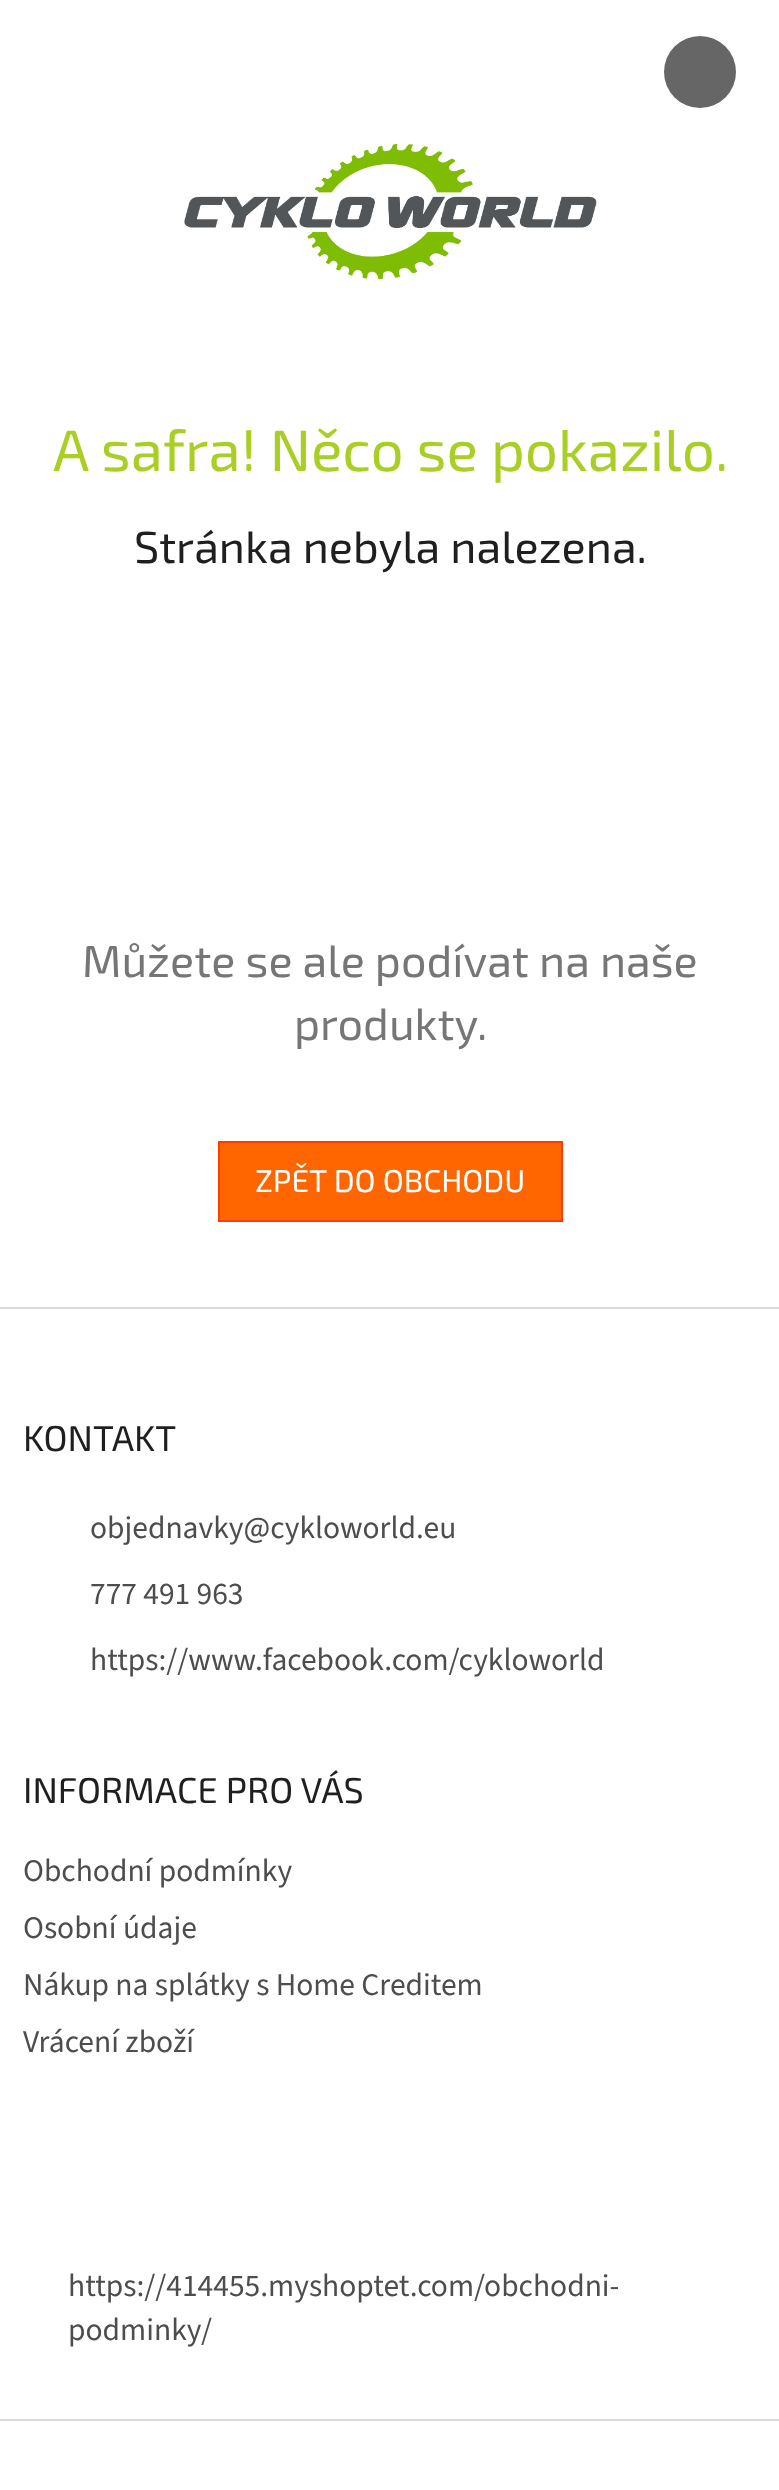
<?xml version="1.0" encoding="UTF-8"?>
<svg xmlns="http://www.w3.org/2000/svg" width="779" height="2490">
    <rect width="100%" height="100%" fill="#FFFFFF"/>
    <circle cx="700" cy="72" r="36" fill="#666666"/>
    <image x="184" y="144" width="413" height="135" href="img_01.png"/>
    <text x="53" y="471" font-family="'Exo 2'" font-size="58.5" fill="#AACF24">A safra! Něco se pokazilo.</text>
    <text x="134" y="563" font-family="'Exo 2'" font-size="45" fill="#1F1F1F">Stránka nebyla nalezena.</text>
    <text x="82" y="977" font-family="'Exo 2'" font-size="45" fill="#767676">Můžete se ale podívat na naše</text>
    <text x="294" y="1040" font-family="'Exo 2'" font-size="45" fill="#767676">produkty.</text>
    <rect x="219" y="1142" width="343" height="79" fill="#FF6600" stroke="#FF3C00" stroke-width="2"/>
    <text x="255" y="1192" font-family="'Exo 2'" font-size="31.5" fill="#FFFFFF">ZPĚT DO OBCHODU</text>
    <rect x="0" y="1307" width="779" height="2" fill="#DADADA"/>
    <text x="23" y="1451" font-family="'Exo 2'" font-size="36" fill="#1F1F1F">KONTAKT</text>
    <text x="90" y="1538" font-family="'Source Sans 3'" font-size="31.5" fill="#4D4D4D">objednavky@cykloworld.eu</text>
    <text x="90" y="1604" font-family="'Source Sans 3'" font-size="31.5" fill="#4D4D4D">777 491 963</text>
    <text x="90" y="1670" font-family="'Source Sans 3'" font-size="31.5" fill="#4D4D4D">https://www.facebook.com/cykloworld</text>
    <text x="23" y="1803" font-family="'Exo 2'" font-size="36" fill="#1F1F1F">INFORMACE PRO VÁS</text>
    <text font-family="'Source Sans 3'" font-size="31.5" fill="#4D4D4D">
        <tspan x="23" y="1881">Obchodní podmínky</tspan>
        <tspan x="23" y="1938">Osobní údaje</tspan>
        <tspan x="23" y="1995">Nákup na splátky s Home Creditem</tspan>
        <tspan x="23" y="2052">Vrácení zboží</tspan>
    </text>
    <text font-family="'Source Sans 3'" font-size="31.5" fill="#4D4D4D">
        <tspan x="68" y="2296">https://414455.myshoptet.com/obchodni-</tspan>
        <tspan x="68" y="2340">podminky/</tspan>
    </text>
    <rect x="0" y="2419" width="779" height="2" fill="#DADADA"/>
</svg>
